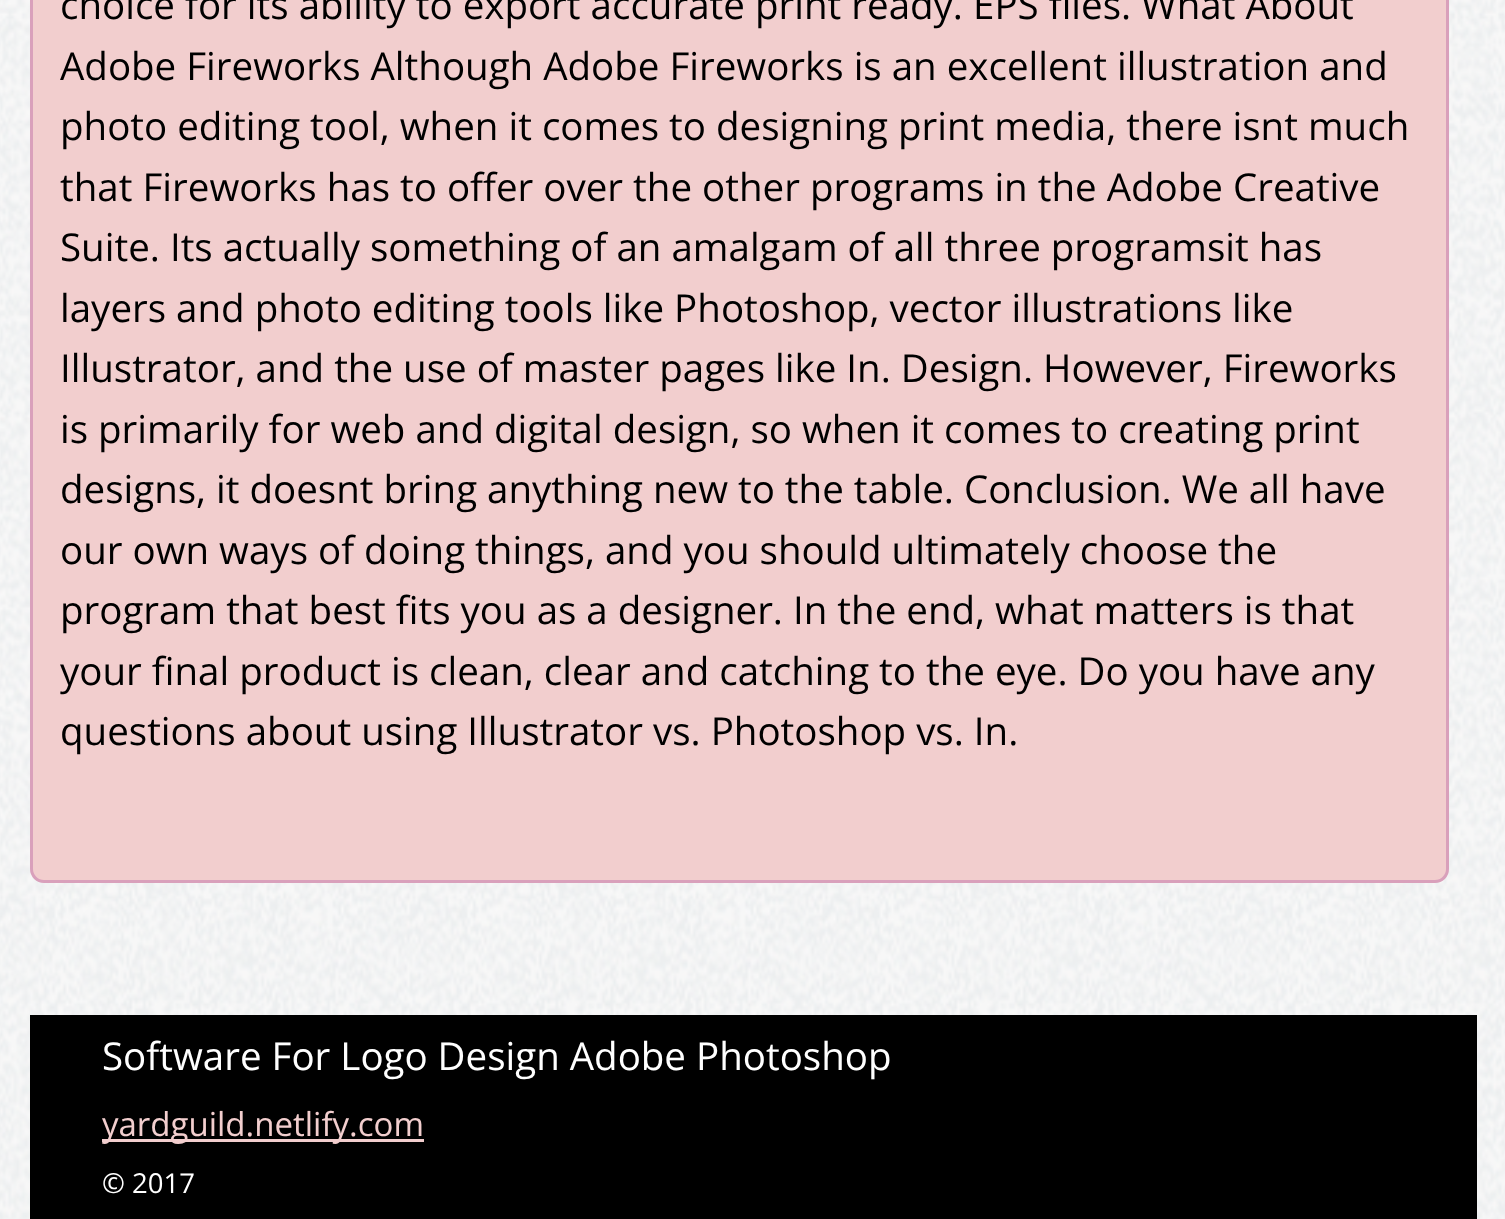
<?xml version="1.0" encoding="UTF-8"?>
<svg xmlns="http://www.w3.org/2000/svg" width="1505" height="1219">
    <rect width="100%" height="100%" fill="#FFFFFF"/>
    <image x="0" y="0" width="1505" height="1219" href="img_01.png"/>
    <rect x="31.5" y="-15.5" width="1416" height="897" rx="12.5" fill="#F2CECE" stroke="#D9A0BB" stroke-width="3"/>
    <text font-family="Open Sans" font-size="38.5" fill="#000000">
        <tspan x="60" y="19">choice for its ability to export accurate print ready. EPS files. What About</tspan>
        <tspan x="60" y="80">Adobe Fireworks Although Adobe Fireworks is an excellent illustration and</tspan>
        <tspan x="60" y="140">photo editing tool, when it comes to designing print media, there isnt much</tspan>
        <tspan x="60" y="201">that Fireworks has to offer over the other programs in the Adobe Creative</tspan>
        <tspan x="60" y="261">Suite. Its actually something of an amalgam of all three programsit has</tspan>
        <tspan x="60" y="322">layers and photo editing tools like Photoshop, vector illustrations like</tspan>
        <tspan x="60" y="382">Illustrator, and the use of master pages like In. Design. However, Fireworks</tspan>
        <tspan x="60" y="443">is primarily for web and digital design, so when it comes to creating print</tspan>
        <tspan x="60" y="503">designs, it doesnt bring anything new to the table. Conclusion. We all have</tspan>
        <tspan x="60" y="564">our own ways of doing things, and you should ultimately choose the</tspan>
        <tspan x="60" y="624">program that best fits you as a designer. In the end, what matters is that</tspan>
        <tspan x="60" y="685">your final product is clean, clear and catching to the eye. Do you have any</tspan>
        <tspan x="60" y="745">questions about using Illustrator vs. Photoshop vs. In.</tspan>
    </text>
    <rect x="30" y="1015" width="1447" height="204" fill="#000000"/>
    <text x="102" y="1070" font-family="Open Sans" font-size="38.5" fill="#FFFFFF">Software For Logo Design Adobe Photoshop</text>
    <rect x="102" y="1139" width="322" height="3" fill="#F2CECE"/>
    <text x="102" y="1136" font-family="Open Sans" font-size="33" fill="#F2CECE">yardguild.netlify.com</text>
    <text x="102" y="1193" font-family="Open Sans" font-size="27.5" fill="#FFFFFF">© 2017</text>
</svg>
